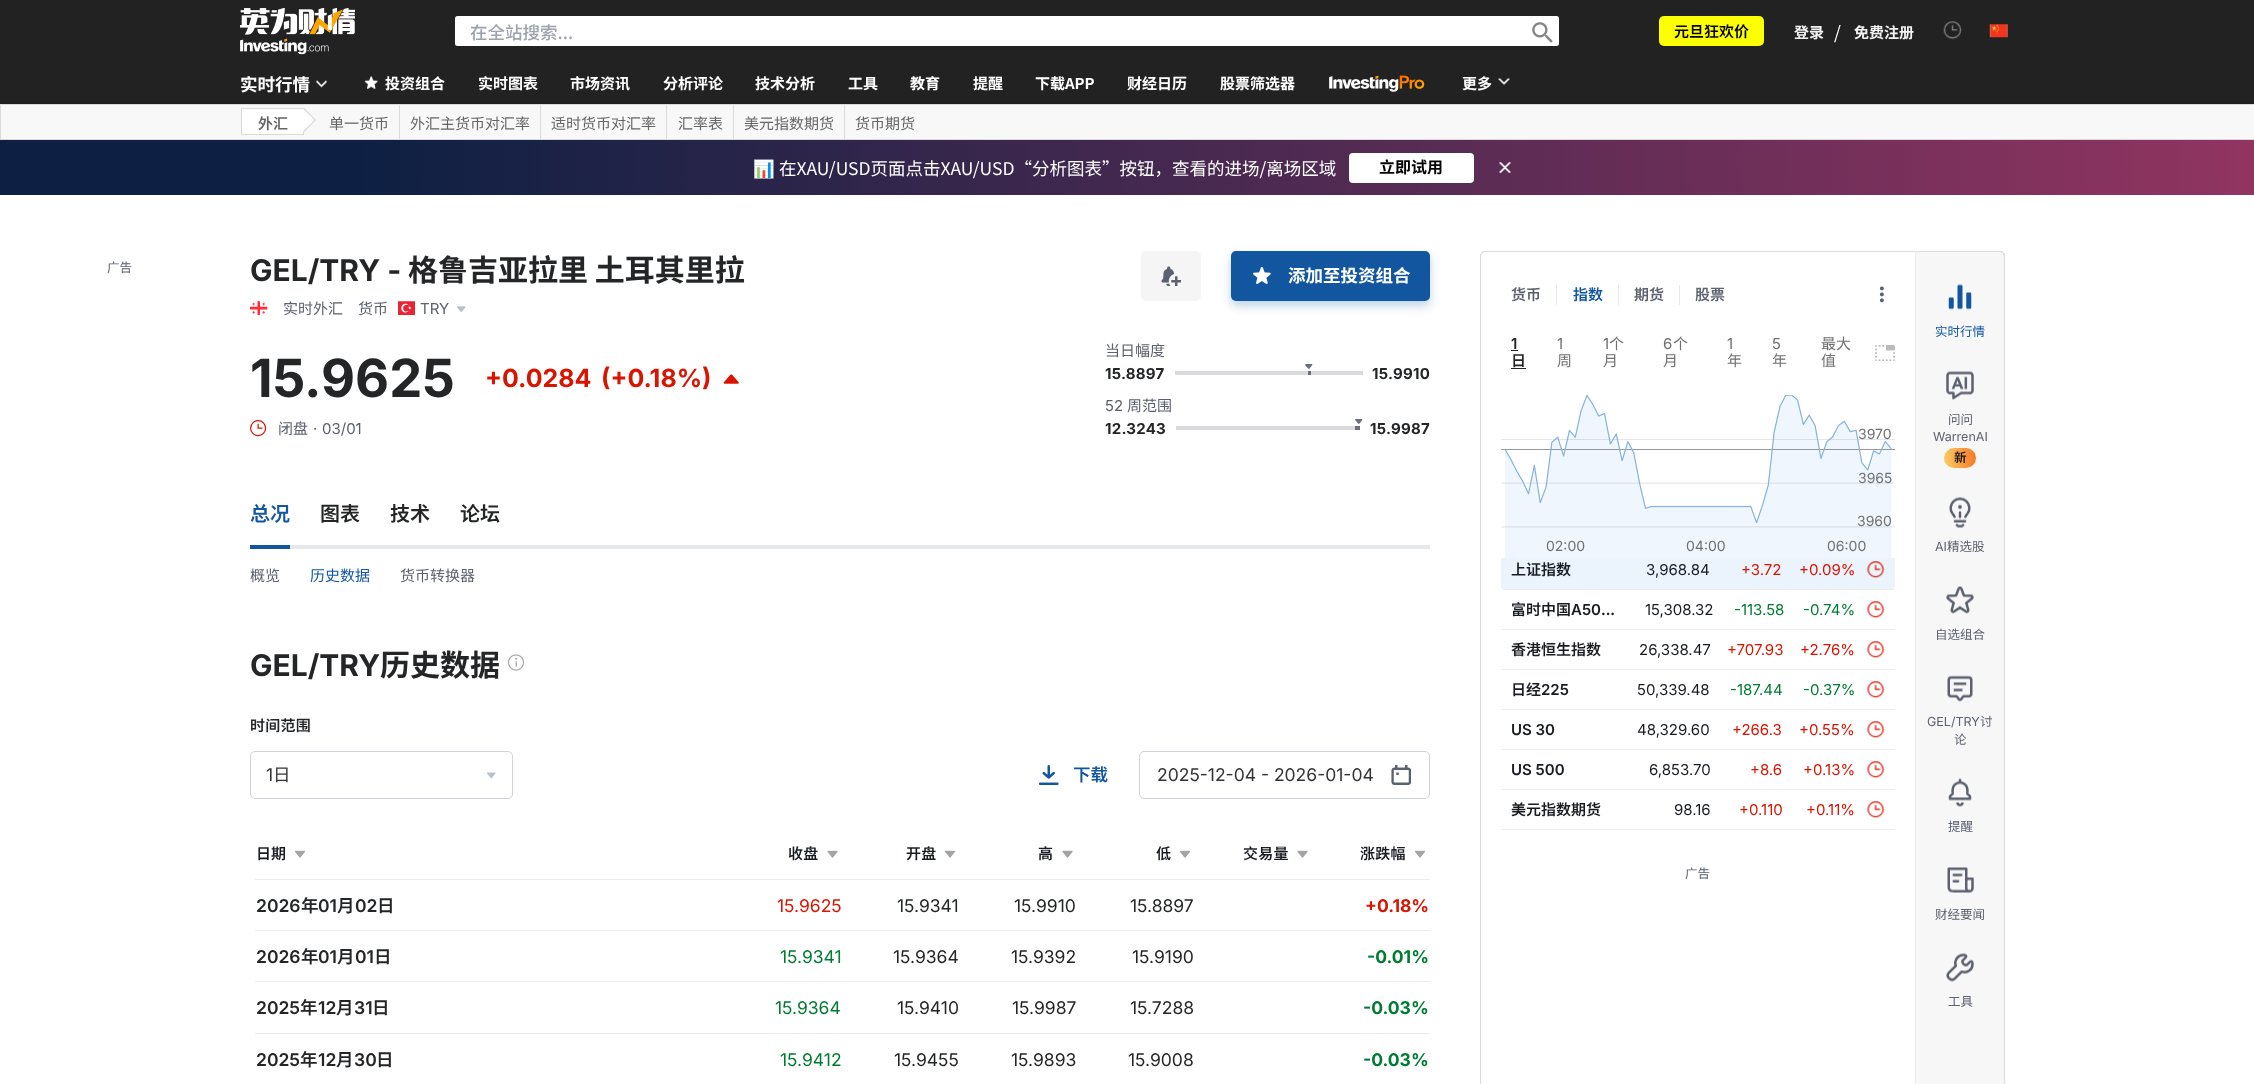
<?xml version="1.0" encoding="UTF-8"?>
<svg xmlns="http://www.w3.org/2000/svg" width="2254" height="1084">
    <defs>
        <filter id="blur1" x="-50%" y="-200%" width="200%" height="500%"><feGaussianBlur stdDeviation="2"/></filter>
        <radialGradient id="g1" gradientUnits="userSpaceOnUse" cx="3563" cy="152" r="3563"><stop offset="0" stop-color="#EC4275"/><stop offset="0.9" stop-color="#0D2043"/></radialGradient>
        <filter id="blur2" x="-50%" y="-200%" width="200%" height="500%"><feGaussianBlur stdDeviation="5"/></filter>
        <linearGradient id="g2" gradientUnits="userSpaceOnUse" x1="1943" y1="459" x2="1982" y2="456"><stop offset="0.07" stop-color="#FAC761"/><stop offset="1" stop-color="#F7681C"/></linearGradient>
    </defs>
    <rect width="100%" height="100%" fill="#FFFFFF"/>
    <rect x="0" y="0" width="2254" height="104" fill="#222222"/>
    <image x="240" y="8" width="115" height="47" href="img_01.png"/>
    <rect x="455" y="16" width="1104" height="30" rx="2.5" fill="#FFFFFF"/>
    <text x="470" y="39" font-family="Noto Sans SC" font-size="17.5" font-weight="500" fill="#9CA3AF">在全站搜索...</text>
    <image x="1532" y="22" width="21" height="21" href="img_02.png"/>
    <rect x="1659" y="16" width="105" height="30" rx="5" fill="#FBFF00"/>
    <text x="1674" y="37" font-family="Noto Sans SC" font-size="15" font-weight="600" fill="#000000">元旦狂欢价</text>
    <text x="1794" y="38" font-family="Noto Sans SC" font-size="15" font-weight="700" fill="#F2F2F2">登录</text>
    <text x="1834" y="39" font-family="Noto Sans SC" font-size="17.5" fill="#FFFFFF">/</text>
    <text x="1854" y="38" font-family="Noto Sans SC" font-size="15" font-weight="700" fill="#F2F2F2">免费注册</text>
    <image x="1943" y="21" width="19" height="19" href="img_03.png"/>
    <image x="1989" y="24" width="19" height="14" href="img_04.png"/>
    <text x="240" y="91" font-family="Noto Sans SC" font-size="17.5" font-weight="700" fill="#FFFFFF">实时行情</text>
    <image x="316" y="80" width="11" height="8" href="img_05.png"/>
    <image x="364" y="75" width="14" height="14" href="img_06.png"/>
    <text x="385" y="89" font-family="Noto Sans SC" font-size="15" font-weight="700" fill="#FFFFFF">投资组合</text>
    <text x="478" y="89" font-family="Noto Sans SC" font-size="15" font-weight="700" fill="#FFFFFF">实时图表</text>
    <text x="570" y="89" font-family="Noto Sans SC" font-size="15" font-weight="700" fill="#FFFFFF">市场资讯</text>
    <text x="663" y="89" font-family="Noto Sans SC" font-size="15" font-weight="700" fill="#FFFFFF">分析评论</text>
    <text x="755" y="89" font-family="Noto Sans SC" font-size="15" font-weight="700" fill="#FFFFFF">技术分析</text>
    <text x="848" y="89" font-family="Noto Sans SC" font-size="15" font-weight="700" fill="#FFFFFF">工具</text>
    <text x="910" y="89" font-family="Noto Sans SC" font-size="15" font-weight="700" fill="#FFFFFF">教育</text>
    <text x="973" y="89" font-family="Noto Sans SC" font-size="15" font-weight="700" fill="#FFFFFF">提醒</text>
    <text x="1035" y="89" font-family="Noto Sans SC" font-size="15" font-weight="700" fill="#FFFFFF">下载APP</text>
    <text x="1127" y="89" font-family="Noto Sans SC" font-size="15" font-weight="700" fill="#FFFFFF">财经日历</text>
    <text x="1220" y="89" font-family="Noto Sans SC" font-size="15" font-weight="700" fill="#FFFFFF">股票筛选器</text>
    <image x="1329" y="75" width="96" height="17" href="img_07.png"/>
    <text x="1462" y="89" font-family="Noto Sans SC" font-size="15" font-weight="700" fill="#FFFFFF">更多</text>
    <image x="1498" y="78" width="12" height="7" href="img_08.png"/>
    <rect x="0" y="105" width="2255" height="36" fill="#000000" fill-opacity="0.2" filter="url(#blur1)"/>
    <rect x="0.5" y="104.5" width="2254" height="35" fill="#F8F8F8" stroke="#DADADA"/>
    <rect x="241.5" y="108.5" width="62" height="26" fill="#FFFFFF" stroke="#DADADA"/>
    <text x="258" y="129" font-family="Noto Sans SC" font-size="15" font-weight="600" fill="#666666">外汇</text>
    <path d="M 304 107.5 L 316 120 L 304 132.5 L 291.5 120 Z" fill="#FFFFFF"/>
    <path d="M 304 107.5 L 316 120 L 315.5 121 L 303 108.5 Z" fill="#DADADA"/>
    <path d="M 315.5 119 L 316 120 L 304 132.5 L 303 131.5 Z" fill="#DADADA"/>
    <rect x="399" y="105" width="1" height="34" fill="#DADADA"/>
    <text x="329" y="129" font-family="Noto Sans SC" font-size="15" fill="#666666">单一货币</text>
    <rect x="540" y="105" width="1" height="34" fill="#DADADA"/>
    <text x="410" y="129" font-family="Noto Sans SC" font-size="15" fill="#666666">外汇主货币对汇率</text>
    <rect x="666" y="105" width="1" height="34" fill="#DADADA"/>
    <text x="551" y="129" font-family="Noto Sans SC" font-size="15" fill="#666666">适时货币对汇率</text>
    <rect x="733" y="105" width="1" height="34" fill="#DADADA"/>
    <text x="678" y="129" font-family="Noto Sans SC" font-size="15" fill="#666666">汇率表</text>
    <rect x="844" y="105" width="1" height="34" fill="#DADADA"/>
    <text x="744" y="129" font-family="Noto Sans SC" font-size="15" fill="#666666">美元指数期货</text>
    <text x="855" y="129" font-family="Noto Sans SC" font-size="15" fill="#666666">货币期货</text>
    <rect x="0" y="140" width="2254" height="55" fill="url(#g1)"/>
    <text x="753" y="175" font-family="Noto Color Emoji" font-size="17.5" fill="#FFFFFF">📊</text>
    <text x="779" y="175" font-family="Noto Sans SC" font-size="17.5" fill="#FFFFFF">在XAU/USD页面点击XAU/USD“分析图表”按钮，查看的进场/离场区域</text>
    <rect x="1349" y="153" width="125" height="30" rx="4" fill="#FFFFFF"/>
    <text x="1379" y="173" font-family="Noto Sans SC" font-size="16" font-weight="700" fill="#000000">立即试用</text>
    <image x="1499" y="162" width="12" height="11" href="img_09.png"/>
    <text x="107" y="272" font-family="Noto Sans SC" font-size="12.5" fill="#5B616E">广告</text>
    <text x="250" y="281" font-family="Inter" font-size="30" font-weight="700" fill="#232526">GEL/TRY -</text>
    <text x="408" y="281" font-family="Noto Sans SC" font-size="30" font-weight="700" fill="#232526">格鲁吉亚拉里 土耳其里拉</text>
    <image x="250" y="301" width="18" height="14" href="img_10.png"/>
    <text x="283" y="314" font-family="Noto Sans SC" font-size="15" fill="#5B616E">实时外汇</text>
    <text x="358" y="314" font-family="Noto Sans SC" font-size="15" fill="#5B616E">货币</text>
    <image x="398" y="301" width="17" height="14" href="img_11.png"/>
    <text x="420" y="314" font-family="Inter" font-size="15" fill="#5B616E">TRY</text>
    <image x="457" y="306" width="9" height="6" href="img_12.png"/>
    <rect x="1141" y="251" width="60" height="50" rx="5" fill="#F5F5F5"/>
    <image x="1161" y="266" width="20" height="20" href="img_13.png"/>
    <rect x="1231" y="256" width="199" height="50" rx="5" fill="#1256A0" fill-opacity="0.25" filter="url(#blur2)"/>
    <rect x="1231" y="251" width="199" height="50" rx="5" fill="#1256A0"/>
    <image x="1253" y="267" width="18" height="17" href="img_14.png"/>
    <text x="1288" y="282" font-family="Noto Sans SC" font-size="17.5" font-weight="700" fill="#FFFFFF">添加至投资组合</text>
    <text x="250" y="397" font-family="Inter" font-size="52.5" font-weight="700" fill="#232526">15.9625</text>
    <text x="485" y="387" font-family="Inter" font-size="25" font-weight="700" fill="#D91400">+0.0284</text>
    <text x="601" y="387" font-family="Inter" font-size="25" font-weight="700" fill="#D91400">(+0.18%)</text>
    <image x="723" y="374" width="16" height="10" href="img_15.png"/>
    <image x="250" y="420" width="17" height="17" href="img_16.png"/>
    <text x="278" y="434" font-family="Noto Sans SC" font-size="15" fill="#5B616E">闭盘</text>
    <text x="313" y="434" font-family="Inter" font-size="15" fill="#5B616E">·</text>
    <text x="322" y="434" font-family="Inter" font-size="15" fill="#5B616E">03/01</text>
    <text x="1105" y="356" font-family="Noto Sans SC" font-size="15" fill="#5B616E">当日幅度</text>
    <text x="1105" y="379" font-family="Inter" font-size="15" font-weight="700" letter-spacing="0.25" fill="#232526">15.8897</text>
    <rect x="1175" y="371" width="188" height="4" fill="#DADBDE"/>
    <image x="1305" y="364" width="8" height="5" href="img_17.png"/>
    <rect x="1308" y="371" width="3" height="4" fill="#6A707C"/>
    <text x="1372" y="379" font-family="Inter" font-size="15" font-weight="700" letter-spacing="0.25" fill="#232526">15.9910</text>
    <text x="1105" y="411" font-family="Inter" font-size="15" fill="#5B616E">52</text>
    <text x="1127" y="411" font-family="Noto Sans SC" font-size="15" fill="#5B616E">周范围</text>
    <text x="1105" y="434" font-family="Inter" font-size="15" font-weight="700" letter-spacing="0.25" fill="#232526">12.3243</text>
    <rect x="1176" y="426" width="184" height="4" fill="#DADBDE"/>
    <image x="1355" y="419" width="8" height="5" href="img_17.png"/>
    <rect x="1355" y="426" width="5" height="4" fill="#6A707C"/>
    <text x="1370" y="434" font-family="Inter" font-size="15" font-weight="700" letter-spacing="0.25" fill="#232526">15.9987</text>
    <rect x="290" y="545" width="1140" height="4" fill="#E6E9EB"/>
    <rect x="250" y="545" width="40" height="4" fill="#1256A0"/>
    <text x="250" y="521" font-family="Noto Sans SC" font-size="20" font-weight="600" fill="#1256A0">总况</text>
    <text x="320" y="521" font-family="Noto Sans SC" font-size="20" font-weight="600" fill="#232526">图表</text>
    <text x="390" y="521" font-family="Noto Sans SC" font-size="20" font-weight="600" fill="#232526">技术</text>
    <text x="460" y="521" font-family="Noto Sans SC" font-size="20" font-weight="600" fill="#232526">论坛</text>
    <text x="250" y="581" font-family="Noto Sans SC" font-size="15" fill="#5B616E">概览</text>
    <text x="310" y="581" font-family="Noto Sans SC" font-size="15" fill="#1256A0">历史数据</text>
    <text x="400" y="581" font-family="Noto Sans SC" font-size="15" fill="#5B616E">货币转换器</text>
    <text x="250" y="676" font-family="Inter" font-size="30" font-weight="700" fill="#232526">GEL/TRY</text>
    <text x="380" y="676" font-family="Noto Sans SC" font-size="30" font-weight="700" fill="#232526">历史数据</text>
    <image x="508" y="654" width="17" height="17" href="img_18.png"/>
    <text x="250" y="731" font-family="Noto Sans SC" font-size="15" font-weight="600" letter-spacing="0.25" fill="#232526">时间范围</text>
    <image x="487" y="772" width="9" height="7" href="img_19.png"/>
    <rect x="250.5" y="751.5" width="262" height="47" rx="4.5" fill="none" stroke="#CFD4DA"/>
    <text x="266" y="781" font-family="Inter" font-size="17.5" fill="#333333">1</text>
    <text x="273" y="781" font-family="Noto Sans SC" font-size="17.5" fill="#333333">日</text>
    <image x="1039" y="765" width="20" height="20" href="img_20.png"/>
    <text x="1073" y="781" font-family="Noto Sans SC" font-size="17.5" font-weight="600" fill="#1256A0">下载</text>
    <rect x="1139.5" y="751.5" width="290" height="47" rx="4.5" fill="none" stroke="#CFD4DA"/>
    <text x="1157" y="781" font-family="Inter" font-size="17.5" fill="#333333">2025-12-04 - 2026-01-04</text>
    <image x="1391" y="765" width="20" height="20" href="img_21.png"/>
    <text x="256" y="859" font-family="Noto Sans SC" font-size="15" font-weight="600" fill="#181C21">日期</text>
    <image x="294" y="850" width="12" height="8" href="img_22.png"/>
    <text x="788" y="859" font-family="Noto Sans SC" font-size="15" font-weight="600" letter-spacing="0.25" fill="#181C21">收盘</text>
    <image x="827" y="850" width="11" height="8" href="img_23.png"/>
    <text x="906" y="859" font-family="Noto Sans SC" font-size="15" font-weight="600" letter-spacing="0.25" fill="#181C21">开盘</text>
    <image x="944" y="850" width="12" height="8" href="img_22.png"/>
    <text x="1038" y="859" font-family="Noto Sans SC" font-size="15" font-weight="600" letter-spacing="0.25" fill="#181C21">高</text>
    <image x="1062" y="850" width="11" height="8" href="img_23.png"/>
    <text x="1156" y="859" font-family="Noto Sans SC" font-size="15" font-weight="600" letter-spacing="0.25" fill="#181C21">低</text>
    <image x="1179" y="850" width="12" height="8" href="img_22.png"/>
    <text x="1243" y="859" font-family="Noto Sans SC" font-size="15" font-weight="600" letter-spacing="0.25" fill="#181C21">交易量</text>
    <image x="1297" y="850" width="11" height="8" href="img_23.png"/>
    <text x="1360" y="859" font-family="Noto Sans SC" font-size="15" font-weight="600" letter-spacing="0.25" fill="#181C21">涨跌幅</text>
    <image x="1414" y="850" width="12" height="8" href="img_22.png"/>
    <rect x="255" y="879" width="1175" height="1" fill="#ECEDEF"/>
    <text x="256" y="912" font-family="Inter" font-size="17.5" font-weight="600" fill="#232526">2026</text>
    <text x="301" y="912" font-family="Noto Sans SC" font-size="17.5" font-weight="600" fill="#232526">年</text>
    <text x="318" y="912" font-family="Inter" font-size="17.5" font-weight="600" fill="#232526">01</text>
    <text x="337" y="912" font-family="Noto Sans SC" font-size="17.5" font-weight="600" fill="#232526">月</text>
    <text x="355" y="912" font-family="Inter" font-size="17.5" font-weight="600" fill="#232526">02</text>
    <text x="377" y="912" font-family="Noto Sans SC" font-size="17.5" font-weight="600" fill="#232526">日</text>
    <text x="777" y="912" font-family="Inter" font-size="17.5" fill="#D91400">15.9625</text>
    <text x="897" y="912" font-family="Inter" font-size="17.5" fill="#232526">15.9341</text>
    <text x="1014" y="912" font-family="Inter" font-size="17.5" fill="#232526">15.9910</text>
    <text x="1130" y="912" font-family="Inter" font-size="17.5" fill="#232526">15.8897</text>
    <text x="1365" y="912" font-family="Inter" font-size="17.5" font-weight="700" fill="#D91400">+0.18%</text>
    <rect x="255" y="930" width="1175" height="1" fill="#ECEDEF"/>
    <text x="256" y="963" font-family="Inter" font-size="17.5" font-weight="600" fill="#232526">2026</text>
    <text x="301" y="963" font-family="Noto Sans SC" font-size="17.5" font-weight="600" fill="#232526">年</text>
    <text x="318" y="963" font-family="Inter" font-size="17.5" font-weight="600" fill="#232526">01</text>
    <text x="337" y="963" font-family="Noto Sans SC" font-size="17.5" font-weight="600" fill="#232526">月</text>
    <text x="355" y="963" font-family="Inter" font-size="17.5" font-weight="600" fill="#232526">01</text>
    <text x="374" y="963" font-family="Noto Sans SC" font-size="17.5" font-weight="600" fill="#232526">日</text>
    <text x="780" y="963" font-family="Inter" font-size="17.5" fill="#007C32">15.9341</text>
    <text x="893" y="963" font-family="Inter" font-size="17.5" fill="#232526">15.9364</text>
    <text x="1011" y="963" font-family="Inter" font-size="17.5" fill="#232526">15.9392</text>
    <text x="1132" y="963" font-family="Inter" font-size="17.5" fill="#232526">15.9190</text>
    <text x="1367" y="963" font-family="Inter" font-size="17.5" font-weight="700" fill="#007C32">-0.01%</text>
    <rect x="255" y="981" width="1175" height="1" fill="#ECEDEF"/>
    <text x="256" y="1014" font-family="Inter" font-size="17.5" font-weight="600" fill="#232526">2025</text>
    <text x="300" y="1014" font-family="Noto Sans SC" font-size="17.5" font-weight="600" fill="#232526">年</text>
    <text x="318" y="1014" font-family="Inter" font-size="17.5" font-weight="600" fill="#232526">12</text>
    <text x="336" y="1014" font-family="Noto Sans SC" font-size="17.5" font-weight="600" fill="#232526">月</text>
    <text x="354" y="1014" font-family="Inter" font-size="17.5" font-weight="600" fill="#232526">31</text>
    <text x="372" y="1014" font-family="Noto Sans SC" font-size="17.5" font-weight="600" fill="#232526">日</text>
    <text x="775" y="1014" font-family="Inter" font-size="17.5" fill="#007C32">15.9364</text>
    <text x="897" y="1014" font-family="Inter" font-size="17.5" fill="#232526">15.9410</text>
    <text x="1012" y="1014" font-family="Inter" font-size="17.5" fill="#232526">15.9987</text>
    <text x="1130" y="1014" font-family="Inter" font-size="17.5" fill="#232526">15.7288</text>
    <text x="1363" y="1014" font-family="Inter" font-size="17.5" font-weight="700" fill="#007C32">-0.03%</text>
    <rect x="255" y="1033" width="1175" height="1" fill="#ECEDEF"/>
    <text x="256" y="1066" font-family="Inter" font-size="17.5" font-weight="600" fill="#232526">2025</text>
    <text x="300" y="1066" font-family="Noto Sans SC" font-size="17.5" font-weight="600" fill="#232526">年</text>
    <text x="318" y="1066" font-family="Inter" font-size="17.5" font-weight="600" fill="#232526">12</text>
    <text x="336" y="1066" font-family="Noto Sans SC" font-size="17.5" font-weight="600" fill="#232526">月</text>
    <text x="354" y="1066" font-family="Inter" font-size="17.5" font-weight="600" fill="#232526">30</text>
    <text x="376" y="1066" font-family="Noto Sans SC" font-size="17.5" font-weight="600" fill="#232526">日</text>
    <text x="780" y="1066" font-family="Inter" font-size="17.5" fill="#007C32">15.9412</text>
    <text x="894" y="1066" font-family="Inter" font-size="17.5" fill="#232526">15.9455</text>
    <text x="1011" y="1066" font-family="Inter" font-size="17.5" fill="#232526">15.9893</text>
    <text x="1128" y="1066" font-family="Inter" font-size="17.5" fill="#232526">15.9008</text>
    <text x="1363" y="1066" font-family="Inter" font-size="17.5" font-weight="700" fill="#007C32">-0.03%</text>
    <path d="M 1485 251 H 1915 V 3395 H 1485 C 1482 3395 1480 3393 1480 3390 V 256 C 1480 253 1482 251 1485 251 Z M 1485 252 H 1915 V 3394 H 1485 C 1483 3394 1481 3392 1481 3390 V 256 C 1481 254 1483 252 1485 252 Z" fill="#D9DCDF" fill-rule="evenodd"/>
    <text x="1511" y="300" font-family="Noto Sans SC" font-size="15" font-weight="600" fill="#5B616E">货币</text>
    <rect x="1556" y="285" width="1" height="20" fill="#E6E9EB"/>
    <text x="1573" y="300" font-family="Noto Sans SC" font-size="15" font-weight="600" fill="#1256A0">指数</text>
    <rect x="1618" y="285" width="1" height="20" fill="#E6E9EB"/>
    <text x="1634" y="300" font-family="Noto Sans SC" font-size="15" font-weight="600" fill="#5B616E">期货</text>
    <rect x="1679" y="285" width="1" height="20" fill="#E6E9EB"/>
    <text x="1695" y="300" font-family="Noto Sans SC" font-size="15" font-weight="600" fill="#5B616E">股票</text>
    <image x="1879" y="286" width="5" height="17" href="img_24.png"/>
    <text x="1511" y="349" font-family="Inter" font-size="15" font-weight="600" fill="#232526">1</text>
    <rect x="1511" y="350" width="7" height="1" fill="#232526"/>
    <text x="1511" y="366" font-family="Noto Sans SC" font-size="15" font-weight="600" fill="#232526">日</text>
    <rect x="1511" y="368" width="15" height="1" fill="#232526"/>
    <text x="1557" y="349" font-family="Inter" font-size="15" fill="#707070">1</text>
    <text x="1557" y="366" font-family="Noto Sans SC" font-size="15" fill="#707070">周</text>
    <text x="1603" y="349" font-family="Inter" font-size="15" fill="#707070">1</text>
    <text x="1609" y="349" font-family="Noto Sans SC" font-size="15" fill="#707070">个</text>
    <text x="1603" y="366" font-family="Noto Sans SC" font-size="15" fill="#707070">月</text>
    <text x="1663" y="349" font-family="Inter" font-size="15" fill="#707070">6</text>
    <text x="1673" y="349" font-family="Noto Sans SC" font-size="15" fill="#707070">个</text>
    <text x="1663" y="366" font-family="Noto Sans SC" font-size="15" fill="#707070">月</text>
    <text x="1727" y="349" font-family="Inter" font-size="15" fill="#707070">1</text>
    <text x="1727" y="366" font-family="Noto Sans SC" font-size="15" fill="#707070">年</text>
    <text x="1772" y="349" font-family="Inter" font-size="15" fill="#707070">5</text>
    <text x="1772" y="366" font-family="Noto Sans SC" font-size="15" fill="#707070">年</text>
    <text font-family="Noto Sans SC" font-size="15" fill="#707070">
        <tspan x="1821" y="349">最大</tspan>
        <tspan x="1821" y="366">值</tspan>
    </text>
    <image x="1875" y="345" width="20" height="16" href="img_25.png"/>
    <path d="M 1504 550 H 1892 C 1894 550 1895 551 1895 552 V 588 C 1895 588 1894 589 1892 589 H 1504 C 1502 589 1501 588 1501 588 V 552 C 1501 551 1502 550 1504 550 Z" fill="#EBF3FD"/>
    <image x="1501" y="395" width="394" height="163" href="img_26.png"/>
    <text x="1858" y="439" font-family="Inter" font-size="14" fill="#707070">3970</text>
    <text x="1858" y="483" font-family="Inter" font-size="14" fill="#707070">3965</text>
    <text x="1857" y="526" font-family="Inter" font-size="14" fill="#707070">3960</text>
    <text x="1546" y="551" font-family="Inter" font-size="14" fill="#707070">02:00</text>
    <text x="1686" y="551" font-family="Inter" font-size="14" fill="#707070">04:00</text>
    <text x="1827" y="551" font-family="Inter" font-size="14" fill="#707070">06:00</text>
    <rect x="1503" y="589" width="391" height="1" fill="#ECEDEF"/>
    <text x="1511" y="575" font-family="Noto Sans SC" font-size="15" font-weight="600" fill="#181C21">上证指数</text>
    <text x="1646" y="575" font-family="Inter" font-size="15" fill="#181C21">3,968.84</text>
    <text x="1741" y="575" font-family="Inter" font-size="15" fill="#D91400">+3.72</text>
    <text x="1799" y="575" font-family="Inter" font-size="15" fill="#D91400">+0.09%</text>
    <image x="1867" y="561" width="18" height="18" href="img_27.png"/>
    <rect x="1501" y="629" width="394" height="1" fill="#ECEDEF"/>
    <text x="1511" y="615" font-family="Noto Sans SC" font-size="15" font-weight="600" fill="#181C21">富时中国</text>
    <text x="1571" y="615" font-family="Inter" font-size="15" font-weight="600" fill="#181C21">A50</text>
    <text x="1601" y="615" font-family="Noto Sans SC" font-size="15" font-weight="600" fill="#181C21">...</text>
    <text x="1645" y="615" font-family="Inter" font-size="15" fill="#181C21">15,308.32</text>
    <text x="1734" y="615" font-family="Inter" font-size="15" fill="#007C32">-113.58</text>
    <text x="1803" y="615" font-family="Inter" font-size="15" fill="#007C32">-0.74%</text>
    <image x="1867" y="601" width="18" height="18" href="img_28.png"/>
    <rect x="1501" y="669" width="394" height="1" fill="#ECEDEF"/>
    <text x="1511" y="655" font-family="Noto Sans SC" font-size="15" font-weight="600" fill="#181C21">香港恒生指数</text>
    <text x="1639" y="655" font-family="Inter" font-size="15" fill="#181C21">26,338.47</text>
    <text x="1727" y="655" font-family="Inter" font-size="15" fill="#D91400">+707.93</text>
    <text x="1800" y="655" font-family="Inter" font-size="15" fill="#D91400">+2.76%</text>
    <image x="1867" y="641" width="18" height="18" href="img_28.png"/>
    <rect x="1501" y="709" width="394" height="1" fill="#ECEDEF"/>
    <text x="1511" y="695" font-family="Noto Sans SC" font-size="15" font-weight="600" fill="#181C21">日经</text>
    <text x="1541" y="695" font-family="Inter" font-size="15" font-weight="600" fill="#181C21">225</text>
    <text x="1637" y="695" font-family="Inter" font-size="15" fill="#181C21">50,339.48</text>
    <text x="1730" y="695" font-family="Inter" font-size="15" fill="#007C32">-187.44</text>
    <text x="1803" y="695" font-family="Inter" font-size="15" fill="#007C32">-0.37%</text>
    <image x="1867" y="681" width="18" height="18" href="img_28.png"/>
    <rect x="1501" y="749" width="394" height="1" fill="#ECEDEF"/>
    <text x="1511" y="735" font-family="Inter" font-size="15" font-weight="600" fill="#181C21">US 30</text>
    <text x="1637" y="735" font-family="Inter" font-size="15" fill="#181C21">48,329.60</text>
    <text x="1732" y="735" font-family="Inter" font-size="15" fill="#D91400">+266.3</text>
    <text x="1799" y="735" font-family="Inter" font-size="15" fill="#D91400">+0.55%</text>
    <image x="1867" y="721" width="18" height="18" href="img_28.png"/>
    <rect x="1501" y="789" width="394" height="1" fill="#ECEDEF"/>
    <text x="1511" y="775" font-family="Inter" font-size="15" font-weight="600" fill="#181C21">US 500</text>
    <text x="1649" y="775" font-family="Inter" font-size="15" fill="#181C21">6,853.70</text>
    <text x="1750" y="775" font-family="Inter" font-size="15" fill="#D91400">+8.6</text>
    <text x="1803" y="775" font-family="Inter" font-size="15" fill="#D91400">+0.13%</text>
    <image x="1867" y="761" width="18" height="18" href="img_28.png"/>
    <rect x="1501" y="829" width="394" height="1" fill="#ECEDEF"/>
    <text x="1511" y="815" font-family="Noto Sans SC" font-size="15" font-weight="600" fill="#181C21">美元指数期货</text>
    <text x="1674" y="815" font-family="Inter" font-size="15" fill="#181C21">98.16</text>
    <text x="1739" y="815" font-family="Inter" font-size="15" fill="#D91400">+0.110</text>
    <text x="1806" y="815" font-family="Inter" font-size="15" fill="#D91400">+0.11%</text>
    <image x="1867" y="801" width="18" height="18" href="img_28.png"/>
    <text x="1685" y="878" font-family="Noto Sans SC" font-size="12.5" fill="#5B616E">广告</text>
    <path d="M 1915 251 H 2000 C 2003 251 2005 253 2005 256 V 1084 C 2005 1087 2003 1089 2000 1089 H 1915 Z" fill="#F7F7F8"/>
    <path d="M 1916 252 L 1915 251 H 2002 L 2004 253 H 2003 L 2000 252 Z" fill="#D9DCDF"/>
    <path d="M 2005 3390 V 256 C 2005 255 2005 253 2004 253 H 2003 L 2004 256 V 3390 L 2003 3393 L 2004 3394 C 2004 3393 2005 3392 2005 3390 Z" fill="#D9DCDF"/>
    <path d="M 1915 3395 L 1916 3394 V 252 L 1915 251 Z" fill="#ECEDEF"/>
    <image x="1948" y="284" width="24" height="26" href="img_29.png"/>
    <text x="1935" y="336" font-family="Noto Sans SC" font-size="12.5" fill="#1256A0">实时行情</text>
    <image x="1946" y="371" width="28" height="29" href="img_30.png"/>
    <text x="1948" y="424" font-family="Noto Sans SC" font-size="12.5" fill="#5B616E">问问</text>
    <text x="1933" y="441" font-family="Inter" font-size="12.5" fill="#5B616E">WarrenAI</text>
    <rect x="1944" y="448" width="32" height="20" rx="10" fill="url(#g2)"/>
    <text x="1954" y="462" font-family="Noto Sans SC" font-size="12.5" font-weight="600" fill="#111111">新</text>
    <image x="1949" y="497" width="22" height="31" href="img_31.png"/>
    <text x="1935" y="551" font-family="Inter" font-size="12.5" fill="#5B616E">AI</text>
    <text x="1947" y="551" font-family="Noto Sans SC" font-size="12.5" fill="#5B616E">精选股</text>
    <image x="1946" y="586" width="28" height="28" href="img_32.png"/>
    <text x="1935" y="639" font-family="Noto Sans SC" font-size="12.5" fill="#5B616E">自选组合</text>
    <image x="1947" y="675" width="26" height="27" href="img_33.png"/>
    <text x="1927" y="726" font-family="Inter" font-size="12.5" fill="#5B616E">GEL/TRY</text>
    <text x="1980" y="726" font-family="Noto Sans SC" font-size="12.5" fill="#5B616E">讨</text>
    <text x="1954" y="744" font-family="Noto Sans SC" font-size="12.5" fill="#5B616E">论</text>
    <image x="1948" y="778" width="24" height="29" href="img_34.png"/>
    <text x="1948" y="831" font-family="Noto Sans SC" font-size="12.5" fill="#5B616E">提醒</text>
    <image x="1947" y="867" width="27" height="26" href="img_35.png"/>
    <text x="1935" y="919" font-family="Noto Sans SC" font-size="12.5" fill="#5B616E">财经要闻</text>
    <image x="1946" y="953" width="28" height="29" href="img_36.png"/>
    <text x="1948" y="1006" font-family="Noto Sans SC" font-size="12.5" fill="#5B616E">工具</text>
</svg>
